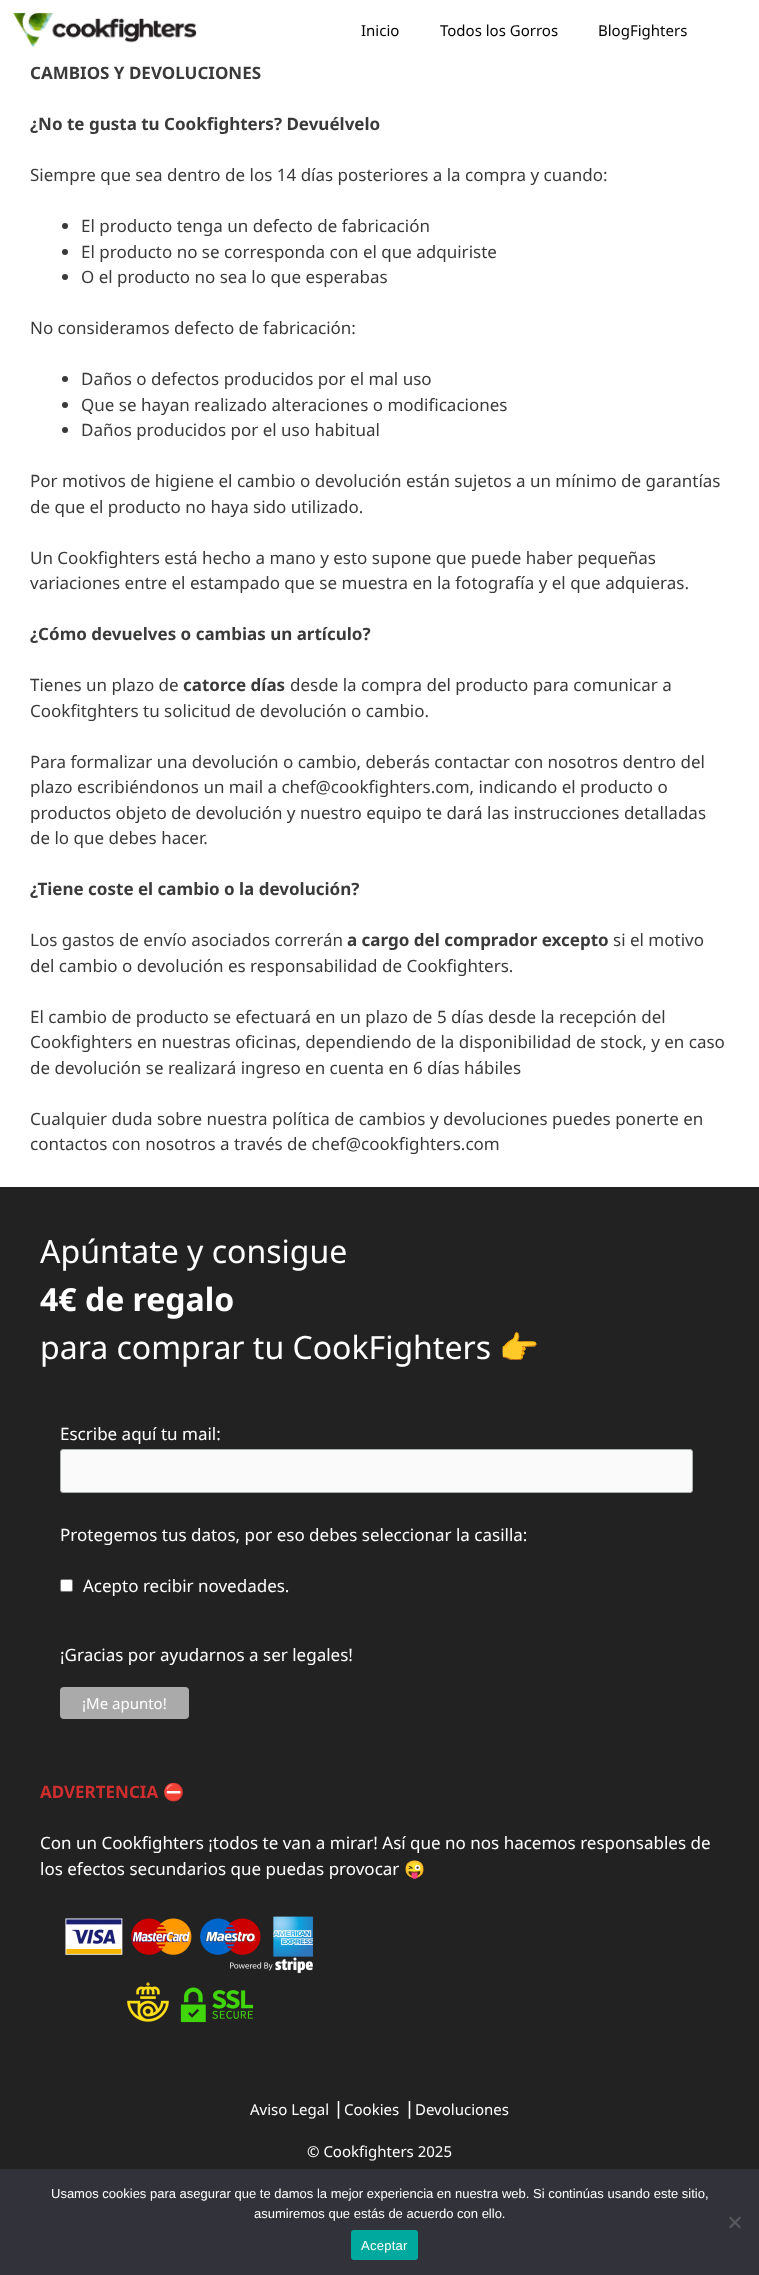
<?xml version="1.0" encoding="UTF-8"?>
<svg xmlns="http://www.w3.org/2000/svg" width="759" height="2275">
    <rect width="100%" height="100%" fill="#FFFFFF"/>
    <image x="13" y="12" width="184" height="36" href="img_01.png"/>
    <text x="361" y="36" font-family="Noto Sans" font-size="15" fill="#000000">Inicio</text>
    <text x="440" y="36" font-family="Noto Sans" font-size="15" fill="#000000">Todos los Gorros</text>
    <text x="598" y="36" font-family="Noto Sans" font-size="15" fill="#000000">BlogFighters</text>
    <text x="30" y="79" font-family="Noto Sans" font-size="17" font-weight="700" fill="#3A3A3A">CAMBIOS Y DEVOLUCIONES</text>
    <text x="30" y="130" font-family="Noto Sans" font-size="17" font-weight="700" fill="#3A3A3A">¿No te gusta tu Cookfighters? Devuélvelo</text>
    <text x="30" y="181" font-family="Noto Sans" font-size="17" fill="#3A3A3A">Siempre que sea dentro de los 14 días posteriores a la compra y cuando:</text>
    <circle cx="65" cy="226" r="3" fill="#3A3A3A"/>
    <text x="81" y="232" font-family="Noto Sans" font-size="17" fill="#3A3A3A">El producto tenga un defecto de fabricación</text>
    <circle cx="65" cy="252" r="3" fill="#3A3A3A"/>
    <text x="81" y="258" font-family="Noto Sans" font-size="17" fill="#3A3A3A">El producto no se corresponda con el que adquiriste</text>
    <circle cx="65" cy="277" r="3" fill="#3A3A3A"/>
    <text x="81" y="283" font-family="Noto Sans" font-size="17" fill="#3A3A3A">O el producto no sea lo que esperabas</text>
    <text x="30" y="334" font-family="Noto Sans" font-size="17" fill="#3A3A3A">No consideramos defecto de fabricación:</text>
    <circle cx="65" cy="379" r="3" fill="#3A3A3A"/>
    <text x="81" y="385" font-family="Noto Sans" font-size="17" fill="#3A3A3A">Daños o defectos producidos por el mal uso</text>
    <circle cx="65" cy="405" r="3" fill="#3A3A3A"/>
    <text x="81" y="411" font-family="Noto Sans" font-size="17" fill="#3A3A3A">Que se hayan realizado alteraciones o modificaciones</text>
    <circle cx="65" cy="430" r="3" fill="#3A3A3A"/>
    <text x="81" y="436" font-family="Noto Sans" font-size="17" fill="#3A3A3A">Daños producidos por el uso habitual</text>
    <text font-family="Noto Sans" font-size="17" fill="#3A3A3A">
        <tspan x="30" y="487">Por motivos de higiene el cambio o devolución están sujetos a un mínimo de garantías</tspan>
        <tspan x="30" y="513">de que el producto no haya sido utilizado.</tspan>
    </text>
    <text font-family="Noto Sans" font-size="17" fill="#3A3A3A">
        <tspan x="30" y="564">Un Cookfighters está hecho a mano y esto supone que puede haber pequeñas</tspan>
        <tspan x="30" y="589">variaciones entre el estampado que se muestra en la fotografía y el que adquieras.</tspan>
    </text>
    <text x="30" y="640" font-family="Noto Sans" font-size="17" font-weight="700" fill="#3A3A3A">¿Cómo devuelves o cambias un artículo?</text>
    <text x="30" y="691" font-family="Noto Sans" font-size="17" fill="#3A3A3A">Tienes un plazo de</text>
    <text x="183" y="691" font-family="Noto Sans" font-size="17" font-weight="700" fill="#3A3A3A">catorce días</text>
    <text x="290" y="691" font-family="Noto Sans" font-size="17" fill="#3A3A3A">desde la compra del producto para comunicar a</text>
    <text x="30" y="717" font-family="Noto Sans" font-size="17" fill="#3A3A3A">Cookfitghters tu solicitud de devolución o cambio.</text>
    <text font-family="Noto Sans" font-size="17" fill="#3A3A3A">
        <tspan x="30" y="768">Para formalizar una devolución o cambio, deberás contactar con nosotros dentro del</tspan>
        <tspan x="30" y="793">plazo escribiéndonos un mail a chef@cookfighters.com, indicando el producto o</tspan>
        <tspan x="30" y="819">productos objeto de devolución y nuestro equipo te dará las instrucciones detalladas</tspan>
        <tspan x="30" y="844">de lo que debes hacer.</tspan>
    </text>
    <text x="30" y="895" font-family="Noto Sans" font-size="17" font-weight="700" fill="#3A3A3A">¿Tiene coste el cambio o la devolución?</text>
    <text x="30" y="946" font-family="Noto Sans" font-size="17" fill="#3A3A3A">Los gastos de envío asociados correrán</text>
    <text x="347" y="946" font-family="Noto Sans" font-size="17" font-weight="700" fill="#3A3A3A">a cargo del comprador excepto</text>
    <text x="613" y="946" font-family="Noto Sans" font-size="17" fill="#3A3A3A">si el motivo</text>
    <text x="30" y="972" font-family="Noto Sans" font-size="17" fill="#3A3A3A">del cambio o devolución es responsabilidad de Cookfighters.</text>
    <text font-family="Noto Sans" font-size="17" fill="#3A3A3A">
        <tspan x="30" y="1023">El cambio de producto se efectuará en un plazo de 5 días desde la recepción del</tspan>
        <tspan x="30" y="1048">Cookfighters en nuestras oficinas, dependiendo de la disponibilidad de stock, y en caso</tspan>
        <tspan x="30" y="1074">de devolución se realizará ingreso en cuenta en 6 días hábiles</tspan>
    </text>
    <text font-family="Noto Sans" font-size="17" fill="#3A3A3A">
        <tspan x="30" y="1125">Cualquier duda sobre nuestra política de cambios y devoluciones puedes ponerte en</tspan>
        <tspan x="30" y="1150">contactos con nosotros a través de chef@cookfighters.com</tspan>
    </text>
    <rect x="0" y="1187" width="759" height="982" fill="#222222"/>
    <text x="40" y="1263" font-family="Noto Sans" font-size="32" fill="#FFFFFF">Apúntate y consigue</text>
    <text x="40" y="1311" font-family="Noto Sans" font-size="32" font-weight="700" fill="#FFFFFF">4€ de regalo</text>
    <text x="40" y="1359" font-family="Noto Sans" font-size="32" fill="#FFFFFF">para comprar tu CookFighters</text>
    <text x="499" y="1359" font-family="Noto Color Emoji" font-size="32" fill="#FFFFFF">👉</text>
    <text x="60" y="1440" font-family="Noto Sans" font-size="17" fill="#FFFFFF">Escribe aquí tu mail:</text>
    <rect x="60.5" y="1449.5" width="632" height="43" rx="2.5" fill="#FAFAFA" stroke="#ABB0B2"/>
    <text x="60" y="1541" font-family="Noto Sans" font-size="17" fill="#FFFFFF">Protegemos tus datos, por eso debes seleccionar la casilla:</text>
    <rect x="60.5" y="1579.5" width="12" height="12" rx="1.5" fill="#FFFFFF" stroke="#767676"/>
    <text x="83" y="1592" font-family="Noto Sans" font-size="17" fill="#FFFFFF">Acepto recibir novedades.</text>
    <text x="60" y="1661" font-family="Noto Sans" font-size="17" fill="#FFFFFF">¡Gracias por ayudarnos a ser legales!</text>
    <rect x="60" y="1687" width="129" height="32" rx="4" fill="#AAAAAA"/>
    <text x="82" y="1709" font-family="Noto Sans" font-size="15" fill="#FFFFFF">¡Me apunto!</text>
    <text x="40" y="1798" font-family="Noto Sans" font-size="17" font-weight="700" fill="#CF2E2E">ADVERTENCIA</text>
    <text x="163" y="1798" font-family="Noto Color Emoji" font-size="17" fill="#CF2E2E">⛔️</text>
    <text font-family="Noto Sans" font-size="17" fill="#FFFFFF">
        <tspan x="40" y="1849">Con un Cookfighters ¡todos te van a mirar! Así que no nos hacemos responsables de</tspan>
        <tspan x="40" y="1875">los efectos secundarios que puedas provocar</tspan>
    </text>
    <text x="404" y="1875" font-family="Noto Color Emoji" font-size="17" fill="#FFFFFF">😜</text>
    <image x="65" y="1916" width="249" height="107" href="img_02.png"/>
    <text x="250" y="2115" font-family="Noto Sans" font-size="15" fill="#FFFFFF">Aviso Legal</text>
    <text x="333" y="2115" font-family="DejaVu Sans" font-size="15" fill="#FFFFFF">⎟</text>
    <text x="344" y="2115" font-family="Noto Sans" font-size="15" fill="#FFFFFF">Cookies</text>
    <text x="404" y="2115" font-family="DejaVu Sans" font-size="15" fill="#FFFFFF">⎟</text>
    <text x="415" y="2115" font-family="Noto Sans" font-size="15" fill="#FFFFFF">Devoluciones</text>
    <text x="307" y="2157" font-family="Noto Sans" font-size="15" fill="#FFFFFF">© Cookfighters 2025</text>
    <rect x="0" y="2169" width="759" height="106" fill="#32323A"/>
    <text x="51" y="2198" font-family="Liberation Sans" font-size="13" fill="#FFFFFF">Usamos cookies para asegurar que te damos la mejor experiencia en nuestra web. Si continúas usando este sitio,</text>
    <text x="254" y="2218" font-family="Liberation Sans" font-size="13" fill="#FFFFFF">asumiremos que estás de acuerdo con ello.</text>
    <path d="M 739.5 2216.5 L 741 2218 L 730.5 2228.5 L 729 2227 Z" fill="#59595D"/>
    <path d="M 729 2218 L 730.5 2216.5 L 741 2227 L 739.5 2228.5 Z" fill="#59595D"/>
    <rect x="351" y="2230" width="67" height="30" rx="3" fill="#00A99D"/>
    <text x="361" y="2250" font-family="Liberation Sans" font-size="13" letter-spacing="0.25" fill="#FFFFFF">Aceptar</text>
</svg>
